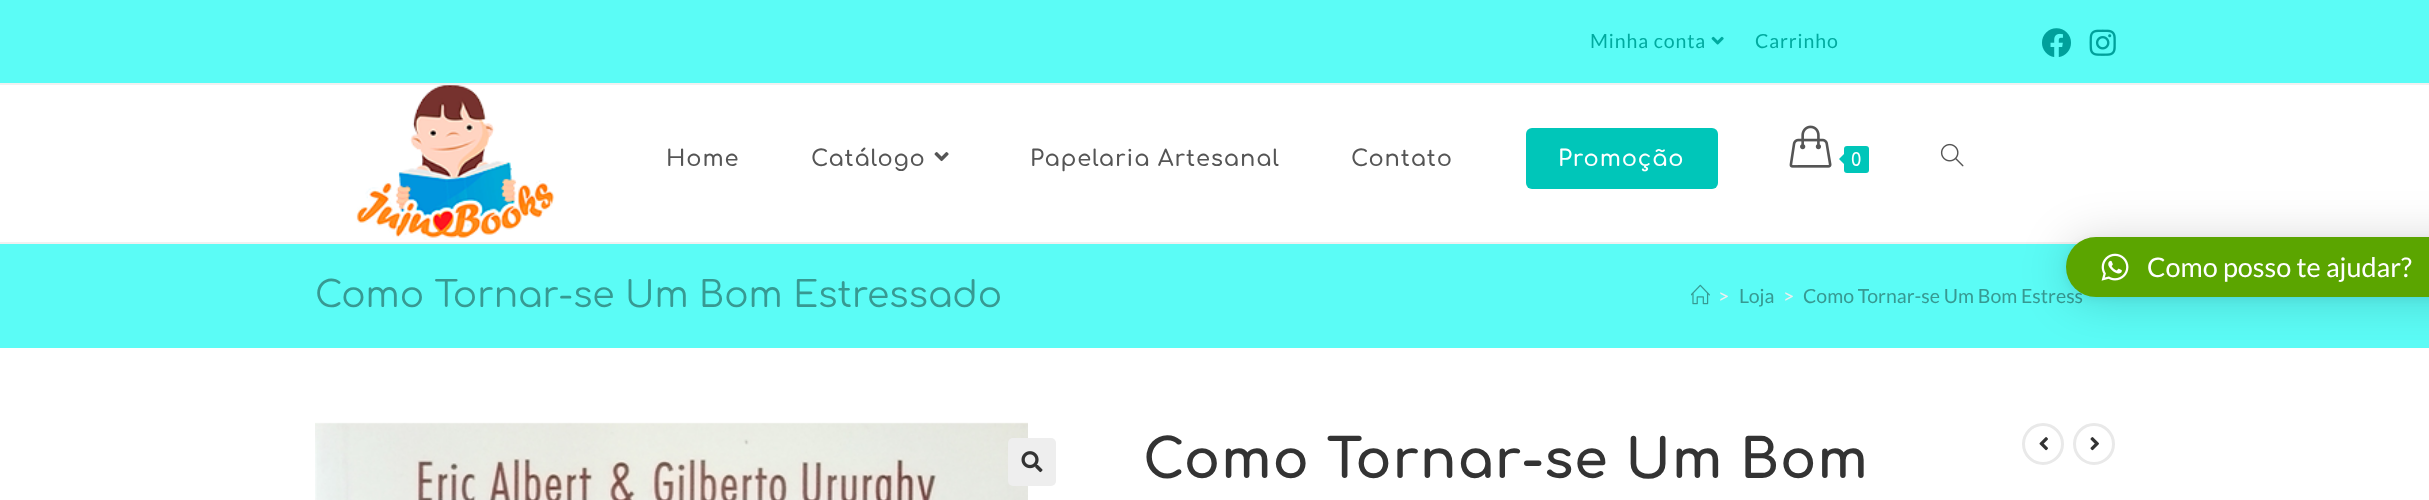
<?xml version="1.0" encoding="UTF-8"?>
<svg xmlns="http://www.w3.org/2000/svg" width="2429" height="500">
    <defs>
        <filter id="blur1" x="-50%" y="-200%" width="200%" height="500%"><feGaussianBlur stdDeviation="24"/></filter>
        <filter id="blur2" x="-50%" y="-200%" width="200%" height="500%"><feGaussianBlur stdDeviation="4.5"/></filter>
    </defs>
    <rect width="100%" height="100%" fill="#FFFFFF"/>
    <rect x="0" y="0" width="2429" height="83" fill="#5BFCF6"/>
    <rect x="0" y="83" width="2429" height="2" fill="#F1F1F1"/>
    <text x="1590" y="48" font-family="Lato" font-size="19.5" letter-spacing="0.9" fill="#00AA9F">Minha conta</text>
    <image x="1711" y="36" width="13" height="9" href="img_01.png"/>
    <text x="1755" y="48" font-family="Lato" font-size="19.5" letter-spacing="0.9" fill="#00AA9F">Carrinho</text>
    <image x="2042" y="28" width="29" height="29" href="img_02.png"/>
    <image x="2089" y="29" width="27" height="27" href="img_03.png"/>
    <rect x="0" y="242" width="2080" height="2" fill="#F1F1F1"/>
    <image x="356" y="85" width="199" height="155" href="img_04.png"/>
    <text x="666" y="166" font-family="Comfortaa" font-size="22.5" font-weight="600" letter-spacing="0.9" fill="#555555">Home</text>
    <text x="811" y="166" font-family="Comfortaa" font-size="22.5" font-weight="600" letter-spacing="0.9" fill="#555555">Catálogo</text>
    <image x="934" y="152" width="15" height="10" href="img_05.png"/>
    <text x="1030" y="166" font-family="Comfortaa" font-size="22.5" font-weight="600" letter-spacing="0.9" fill="#555555">Papelaria Artesanal</text>
    <text x="1351" y="166" font-family="Comfortaa" font-size="22.5" font-weight="600" letter-spacing="0.9" fill="#555555">Contato</text>
    <rect x="1526" y="128" width="192" height="61" rx="6" fill="#00C6B9"/>
    <text x="1558" y="166" font-family="Comfortaa" font-size="22.5" font-weight="600" letter-spacing="0.9" fill="#FFFFFF">Promoção</text>
    <image x="1789" y="125" width="43" height="43" href="img_06.png"/>
    <rect x="1844" y="146" width="25" height="27" rx="3" fill="#00C6B9"/>
    <path d="M 1846.5 151.5 V 166.5 L 1839 159 Z" fill="#00C6B9"/>
    <text x="1851" y="166" font-family="Comfortaa" font-size="18" font-weight="600" fill="#FFFFFF">0</text>
    <image x="1940" y="143" width="24" height="24" href="img_07.png"/>
    <rect x="0" y="244" width="2429" height="104" fill="#5BFCF6"/>
    <text x="315" y="307" font-family="Comfortaa" font-size="36" fill="#379992">Como Tornar-se Um Bom Estressado</text>
    <image x="1691" y="284" width="19" height="21" href="img_08.png"/>
    <text x="1718" y="303" font-family="Lato" font-size="19.5" fill="#EFEFEF">&gt;</text>
    <text x="1739" y="303" font-family="Lato" font-size="19.5" fill="#379992">Loja</text>
    <text x="1783" y="303" font-family="Lato" font-size="19.5" fill="#EFEFEF">&gt;</text>
    <text x="1803" y="303" font-family="Lato" font-size="19.5" fill="#379992">Como Tornar-se Um Bom Estress</text>
    <image x="315" y="422" width="713" height="78" href="img_09.png"/>
    <rect x="1008" y="438" width="48" height="48" rx="5" fill="#EEEEEE"/>
    <image x="1021" y="451" width="22" height="22" href="img_10.png"/>
    <text x="1143" y="478" font-family="Comfortaa" font-size="54" font-weight="700" letter-spacing="0.9" fill="#333333">Como Tornar-se Um Bom</text>
    <circle cx="2043" cy="444" r="19.5" fill="none" stroke="#E9E9E9" stroke-width="3"/>
    <image x="2039" y="437" width="9" height="14" href="img_11.png"/>
    <circle cx="2094" cy="444" r="19.5" fill="none" stroke="#E9E9E9" stroke-width="3"/>
    <image x="2090" y="437" width="9" height="14" href="img_12.png"/>
    <rect x="2066" y="240" width="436" height="60" rx="30" fill="#000000" fill-opacity="0.16" filter="url(#blur1)"/>
    <rect x="2066" y="239" width="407" height="60" rx="30" fill="#000000" fill-opacity="0.06" filter="url(#blur2)"/>
    <rect x="2066" y="237" width="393" height="60" rx="30" fill="#5BA500"/>
    <image x="2101" y="253" width="28" height="28" href="img_13.png"/>
    <text x="2147" y="277" font-family="Lato" font-size="27" fill="#FFFFFF">Como posso te ajudar?</text>
</svg>
